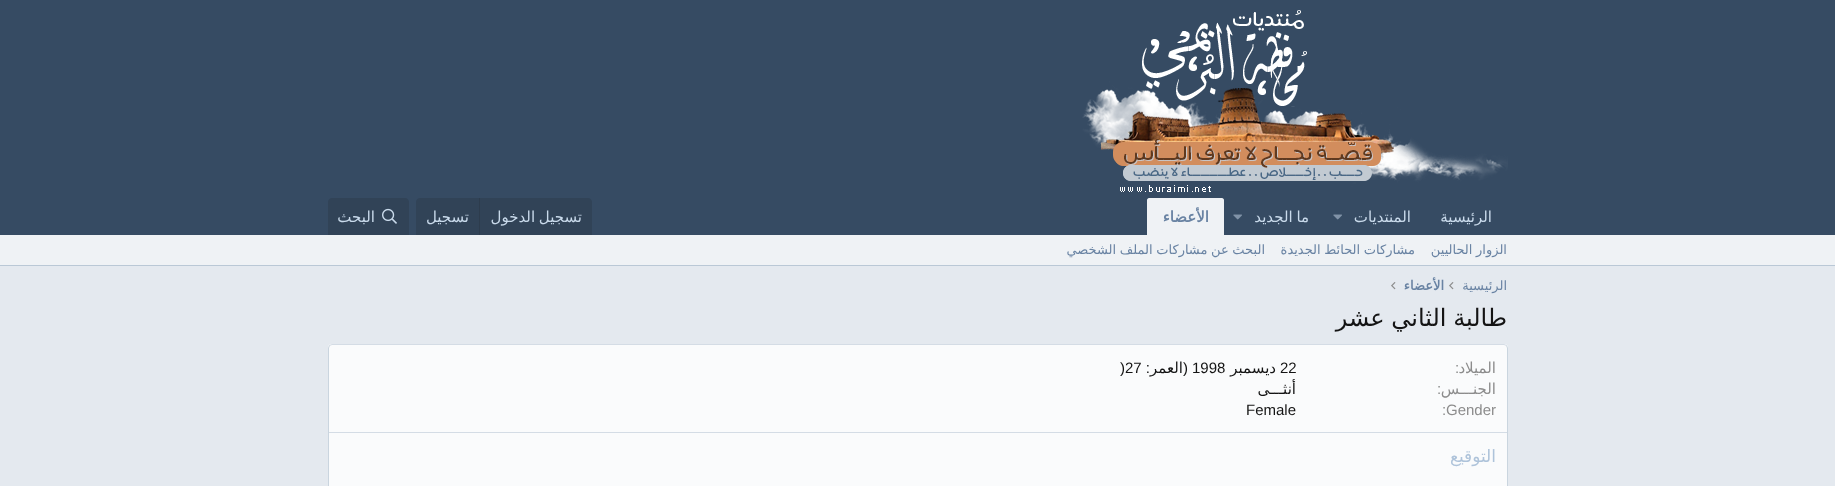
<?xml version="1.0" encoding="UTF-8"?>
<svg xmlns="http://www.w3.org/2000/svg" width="1835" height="486">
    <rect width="100%" height="100%" fill="#E4E9EF"/>
    <rect x="0" y="0" width="1835" height="235" fill="#364B63"/>
    <image x="1082" y="10" width="426" height="182" href="img_01.png"/>
    <text x="1492" y="222" font-family="DejaVu Sans" font-size="15" direction="rtl" fill="#C9DAEB">الرئيسية</text>
    <text x="1411" y="222" font-family="DejaVu Sans" font-size="15" direction="rtl" fill="#C9DAEB">المنتديات</text>
    <image x="1333" y="214" width="9" height="6" href="img_02.png"/>
    <text x="1309" y="222" word-spacing="-1" font-family="DejaVu Sans" font-size="15" direction="rtl" fill="#C9DAEB">ما الجديد</text>
    <image x="1233" y="214" width="9" height="6" href="img_02.png"/>
    <path d="M 1149 198 H 1222 C 1223 198 1224 199 1224 200 V 235 H 1147 V 200 C 1147 199 1148 198 1149 198 Z" fill="#EFF2F5"/>
    <text x="1209" y="222" font-family="DejaVu Sans" font-size="15" font-weight="700" direction="rtl" fill="#6983A3">الأعضاء</text>
    <path d="M 420 198 H 588 C 590 198 592 200 592 202 V 235 H 416 V 202 C 416 200 418 198 420 198 Z" fill="#314357"/>
    <text x="582" y="222" word-spacing="-1" font-family="DejaVu Sans" font-size="15" direction="rtl" fill="#C9DAEB">تسجيل الدخول</text>
    <rect x="479" y="198" width="1" height="37" fill="#2D3C4D"/>
    <text x="469" y="222" font-family="DejaVu Sans" font-size="15" direction="rtl" fill="#C9DAEB">تسجيل</text>
    <path d="M 332 198 H 405 C 407 198 409 200 409 202 V 235 H 328 V 202 C 328 200 330 198 332 198 Z" fill="#314357"/>
    <image x="382" y="208" width="15" height="16" href="img_03.png"/>
    <text x="375" y="222" font-family="DejaVu Sans" font-size="15" direction="rtl" fill="#C9DAEB">البحث</text>
    <rect x="0" y="235" width="1835" height="30" fill="#EFF2F5"/>
    <rect x="0" y="265" width="1835" height="1" fill="#BAC8D6"/>
    <text x="1507" y="254" word-spacing="-0.5" font-family="DejaVu Sans" font-size="13" direction="rtl" fill="#6983A3">الزوار الحاليين</text>
    <text x="1415" y="254" word-spacing="-0.5" font-family="DejaVu Sans" font-size="13" direction="rtl" fill="#6983A3">مشاركات الحائط الجديدة</text>
    <text x="1265" y="254" word-spacing="-0.5" font-family="DejaVu Sans" font-size="13" direction="rtl" fill="#6983A3">البحث عن مشاركات الملف الشخصي</text>
    <text x="1507" y="290" font-family="DejaVu Sans" font-size="13" direction="rtl" fill="#6983A3">الرئيسية</text>
    <image x="1449" y="282" width="5" height="8" href="img_04.png"/>
    <text x="1444" y="290" font-family="DejaVu Sans" font-size="13" font-weight="700" direction="rtl" fill="#6983A3">الأعضاء</text>
    <image x="1391" y="282" width="5" height="8" href="img_04.png"/>
    <text x="1507" y="326" word-spacing="-1" font-family="DejaVu Sans" font-size="24" direction="rtl" fill="#141414">طالبة الثاني عشر</text>
    <rect x="328" y="344" width="1180" height="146" rx="4" fill="#FAFBFC"/>
    <path d="M 329.5 345.5 L 332 344.5 H 1504 L 1506.5 345.5" fill="none" stroke="#D4DCE5"/>
    <path d="M 1506.5 345.5 L 1507.5 348 V 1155 L 1506.5 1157.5" fill="none" stroke="#CAD5DF"/>
    <path d="M 329.5 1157.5 L 328.5 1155 V 348 L 329.5 345.5" fill="none" stroke="#CAD5DF"/>
    <text x="1496" y="373" font-family="DejaVu Sans" font-size="15" direction="rtl" fill="#8C8C8C">الميلاد</text>
    <text x="1455" y="373" font-family="Liberation Sans" font-size="15" fill="#8C8C8C">:</text>
    <text x="1280" y="373" font-family="Liberation Sans" font-size="15" fill="#141414">22</text>
    <text x="1276" y="373" font-family="DejaVu Sans" font-size="15" direction="rtl" fill="#141414">ديسمبر</text>
    <text x="1192" y="373" font-family="Liberation Sans" font-size="15" fill="#141414">1998</text>
    <text x="1188" y="373" font-family="Liberation Sans" font-size="15" direction="rtl" fill="#141414">(</text>
    <text x="1183" y="373" font-family="DejaVu Sans" font-size="15" direction="rtl" fill="#141414">العمر</text>
    <text x="1150" y="373" font-family="Liberation Sans" font-size="15" direction="rtl" fill="#141414">:</text>
    <text x="1120" y="373" font-family="Liberation Sans" font-size="15" fill="#141414">)27</text>
    <text x="1496" y="394" font-family="DejaVu Sans" font-size="15" direction="rtl" fill="#8C8C8C">الجنـــس</text>
    <text x="1437" y="394" font-family="Liberation Sans" font-size="15" fill="#8C8C8C">:</text>
    <text x="1296" y="394" font-family="DejaVu Sans" font-size="15" direction="rtl" fill="#141414">أنثـــى</text>
    <text x="1446" y="415" font-family="Liberation Sans" font-size="15" fill="#8C8C8C">Gender</text>
    <text x="1442" y="415" font-family="Liberation Sans" font-size="15" fill="#8C8C8C">:</text>
    <text x="1246" y="415" font-family="Liberation Sans" font-size="15" fill="#141414">Female</text>
    <rect x="329" y="432" width="1178" height="1" fill="#D4DCE5"/>
    <text x="1496" y="462" font-family="DejaVu Sans" font-size="17" direction="rtl" fill="#AEC3DA">التوقيع</text>
</svg>
